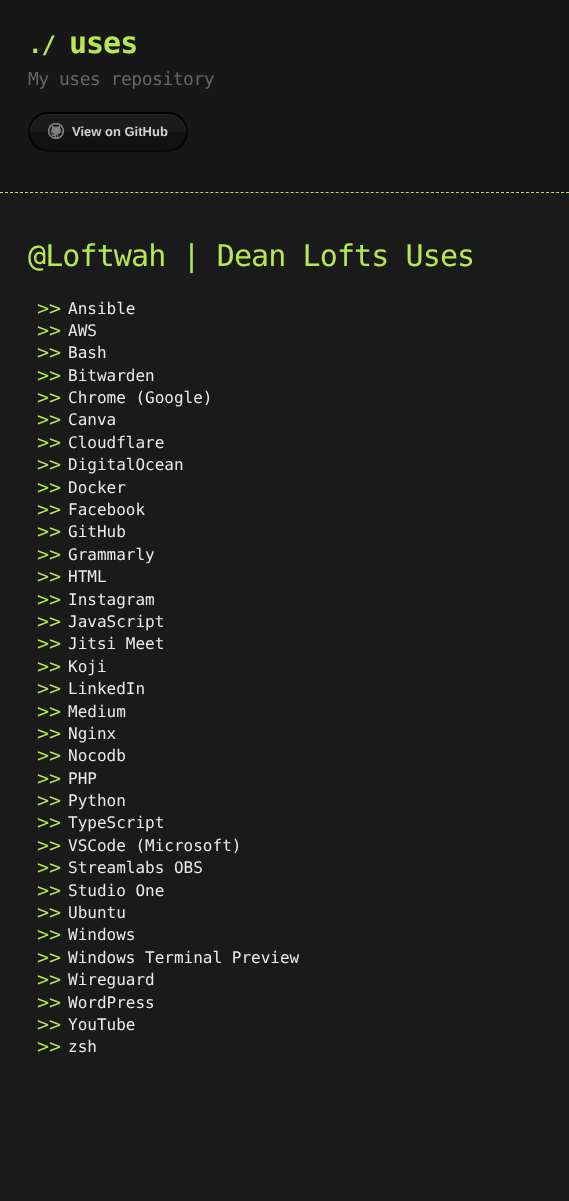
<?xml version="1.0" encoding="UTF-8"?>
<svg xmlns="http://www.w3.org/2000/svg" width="569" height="1201">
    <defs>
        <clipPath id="clip1"><rect x="28" y="112" width="160" height="40" rx="20"/></clipPath>
        <linearGradient id="g1" gradientUnits="userSpaceOnUse" x1="108" y1="114" x2="108" y2="150"><stop offset="0" stop-color="#1C1C1C"/><stop offset="0.5" stop-color="#1B1B1B"/><stop offset="0.5" stop-color="#131313"/><stop offset="1" stop-color="#101010"/></linearGradient>
        <linearGradient id="g2" gradientUnits="userSpaceOnUse" x1="108" y1="150" x2="108" y2="186"><stop offset="0" stop-color="#1C1C1C"/><stop offset="0.5" stop-color="#1B1B1B"/><stop offset="0.5" stop-color="#131313"/><stop offset="1" stop-color="#101010"/></linearGradient>
    </defs>
    <rect width="100%" height="100%" fill="#1A1A1A"/>
    <rect x="0" y="0" width="569" height="193" fill="#171717"/>
    <path d="M 0 192.5 H 569" fill="none" stroke="#B5E853" stroke-dasharray="3 2.01"/>
    <text x="28" y="53" font-family="DejaVu Sans Mono" font-size="24" font-weight="700" letter-spacing="-1" fill="#B5E853">./</text>
    <text x="69" y="53" font-family="DejaVu Sans Mono" font-size="30" font-weight="700" letter-spacing="-1" fill="#B5E853">uses</text>
    <text x="28" y="85" font-family="DejaVu Sans Mono" font-size="18" letter-spacing="-0.5" fill="#666666">My uses repository</text>
    <g clip-path="url(#clip1)">
        <rect x="28" y="114" width="160" height="36" fill="url(#g1)"/>
        <rect x="39" y="150" width="138" height="2" fill="url(#g2)"/>
    </g>
    <path d="M 48 115 H 168 C 178 115 186 123 186 132 C 186 122 178 114 168 114 H 48 C 38 114 30 122 30 132 C 30 123 38 115 48 115 Z" fill="#272727"/>
    <path d="M 34.5 118.5 C 38 115 43 113 48 113 H 168 C 173 113 178 115 181.5 118.5" fill="none" stroke="#000000" stroke-width="2"/>
    <path d="M 181.5 118.5 C 186 123 188 129.5 186.5 135.5 C 183 154.5 162 151 148 151 H 68 C 54 151 33 154.5 29.5 135.5 C 28 129.5 30 123 34.5 118.5" fill="none" stroke="#000000" stroke-opacity="0.7" stroke-width="2"/>
    <image x="48" y="123" width="16" height="16" href="img_01.png"/>
    <text x="72" y="136" font-family="Liberation Sans" font-size="13" font-weight="700" fill="#D1D1D1">View on GitHub</text>
    <text x="28" y="266" font-family="DejaVu Sans Mono" font-size="30" letter-spacing="-0.9" fill="#B5E853">@Loftwah | Dean Lofts Uses</text>
    <image x="37" y="304" width="24" height="10" href="img_02.png"/>
    <text x="68" y="314" font-family="DejaVu Sans Mono" font-size="16" fill="#EAEAEA">Ansible</text>
    <image x="37" y="326" width="24" height="10" href="img_02.png"/>
    <text x="68" y="336" font-family="DejaVu Sans Mono" font-size="16" fill="#EAEAEA">AWS</text>
    <image x="37" y="348" width="24" height="10" href="img_02.png"/>
    <text x="68" y="358" font-family="DejaVu Sans Mono" font-size="16" fill="#EAEAEA">Bash</text>
    <image x="37" y="371" width="24" height="10" href="img_02.png"/>
    <text x="68" y="381" font-family="DejaVu Sans Mono" font-size="16" fill="#EAEAEA">Bitwarden</text>
    <image x="37" y="393" width="24" height="10" href="img_02.png"/>
    <text x="68" y="403" font-family="DejaVu Sans Mono" font-size="16" fill="#EAEAEA">Chrome (Google)</text>
    <image x="37" y="415" width="24" height="10" href="img_02.png"/>
    <text x="68" y="425" font-family="DejaVu Sans Mono" font-size="16" fill="#EAEAEA">Canva</text>
    <image x="37" y="438" width="24" height="10" href="img_02.png"/>
    <text x="68" y="448" font-family="DejaVu Sans Mono" font-size="16" fill="#EAEAEA">Cloudflare</text>
    <image x="37" y="460" width="24" height="10" href="img_02.png"/>
    <text x="68" y="470" font-family="DejaVu Sans Mono" font-size="16" fill="#EAEAEA">DigitalOcean</text>
    <image x="37" y="483" width="24" height="10" href="img_02.png"/>
    <text x="68" y="493" font-family="DejaVu Sans Mono" font-size="16" fill="#EAEAEA">Docker</text>
    <image x="37" y="505" width="24" height="10" href="img_02.png"/>
    <text x="68" y="515" font-family="DejaVu Sans Mono" font-size="16" fill="#EAEAEA">Facebook</text>
    <image x="37" y="527" width="24" height="10" href="img_02.png"/>
    <text x="68" y="537" font-family="DejaVu Sans Mono" font-size="16" fill="#EAEAEA">GitHub</text>
    <image x="37" y="550" width="24" height="10" href="img_02.png"/>
    <text x="68" y="560" font-family="DejaVu Sans Mono" font-size="16" fill="#EAEAEA">Grammarly</text>
    <image x="37" y="572" width="24" height="10" href="img_02.png"/>
    <text x="68" y="582" font-family="DejaVu Sans Mono" font-size="16" fill="#EAEAEA">HTML</text>
    <image x="37" y="595" width="24" height="10" href="img_02.png"/>
    <text x="68" y="605" font-family="DejaVu Sans Mono" font-size="16" fill="#EAEAEA">Instagram</text>
    <image x="37" y="617" width="24" height="10" href="img_02.png"/>
    <text x="68" y="627" font-family="DejaVu Sans Mono" font-size="16" fill="#EAEAEA">JavaScript</text>
    <image x="37" y="639" width="24" height="10" href="img_02.png"/>
    <text x="68" y="649" font-family="DejaVu Sans Mono" font-size="16" fill="#EAEAEA">Jitsi Meet</text>
    <image x="37" y="662" width="24" height="10" href="img_02.png"/>
    <text x="68" y="672" font-family="DejaVu Sans Mono" font-size="16" fill="#EAEAEA">Koji</text>
    <image x="37" y="684" width="24" height="10" href="img_02.png"/>
    <text x="68" y="694" font-family="DejaVu Sans Mono" font-size="16" fill="#EAEAEA">LinkedIn</text>
    <image x="37" y="707" width="24" height="10" href="img_02.png"/>
    <text x="68" y="717" font-family="DejaVu Sans Mono" font-size="16" fill="#EAEAEA">Medium</text>
    <image x="37" y="729" width="24" height="10" href="img_02.png"/>
    <text x="68" y="739" font-family="DejaVu Sans Mono" font-size="16" fill="#EAEAEA">Nginx</text>
    <image x="37" y="751" width="24" height="10" href="img_02.png"/>
    <text x="68" y="761" font-family="DejaVu Sans Mono" font-size="16" fill="#EAEAEA">Nocodb</text>
    <image x="37" y="774" width="24" height="10" href="img_02.png"/>
    <text x="68" y="784" font-family="DejaVu Sans Mono" font-size="16" fill="#EAEAEA">PHP</text>
    <image x="37" y="796" width="24" height="10" href="img_02.png"/>
    <text x="68" y="806" font-family="DejaVu Sans Mono" font-size="16" fill="#EAEAEA">Python</text>
    <image x="37" y="818" width="24" height="10" href="img_02.png"/>
    <text x="68" y="828" font-family="DejaVu Sans Mono" font-size="16" fill="#EAEAEA">TypeScript</text>
    <image x="37" y="841" width="24" height="10" href="img_02.png"/>
    <text x="68" y="851" font-family="DejaVu Sans Mono" font-size="16" fill="#EAEAEA">VSCode (Microsoft)</text>
    <image x="37" y="863" width="24" height="10" href="img_02.png"/>
    <text x="68" y="873" font-family="DejaVu Sans Mono" font-size="16" fill="#EAEAEA">Streamlabs OBS</text>
    <image x="37" y="886" width="24" height="10" href="img_02.png"/>
    <text x="68" y="896" font-family="DejaVu Sans Mono" font-size="16" fill="#EAEAEA">Studio One</text>
    <image x="37" y="908" width="24" height="10" href="img_02.png"/>
    <text x="68" y="918" font-family="DejaVu Sans Mono" font-size="16" fill="#EAEAEA">Ubuntu</text>
    <image x="37" y="930" width="24" height="10" href="img_02.png"/>
    <text x="68" y="940" font-family="DejaVu Sans Mono" font-size="16" fill="#EAEAEA">Windows</text>
    <image x="37" y="953" width="24" height="10" href="img_02.png"/>
    <text x="68" y="963" font-family="DejaVu Sans Mono" font-size="16" fill="#EAEAEA">Windows Terminal Preview</text>
    <image x="37" y="975" width="24" height="10" href="img_02.png"/>
    <text x="68" y="985" font-family="DejaVu Sans Mono" font-size="16" fill="#EAEAEA">Wireguard</text>
    <image x="37" y="998" width="24" height="10" href="img_02.png"/>
    <text x="68" y="1008" font-family="DejaVu Sans Mono" font-size="16" fill="#EAEAEA">WordPress</text>
    <image x="37" y="1020" width="24" height="10" href="img_02.png"/>
    <text x="68" y="1030" font-family="DejaVu Sans Mono" font-size="16" fill="#EAEAEA">YouTube</text>
    <image x="37" y="1042" width="24" height="10" href="img_02.png"/>
    <text x="68" y="1052" font-family="DejaVu Sans Mono" font-size="16" fill="#EAEAEA">zsh</text>
</svg>
